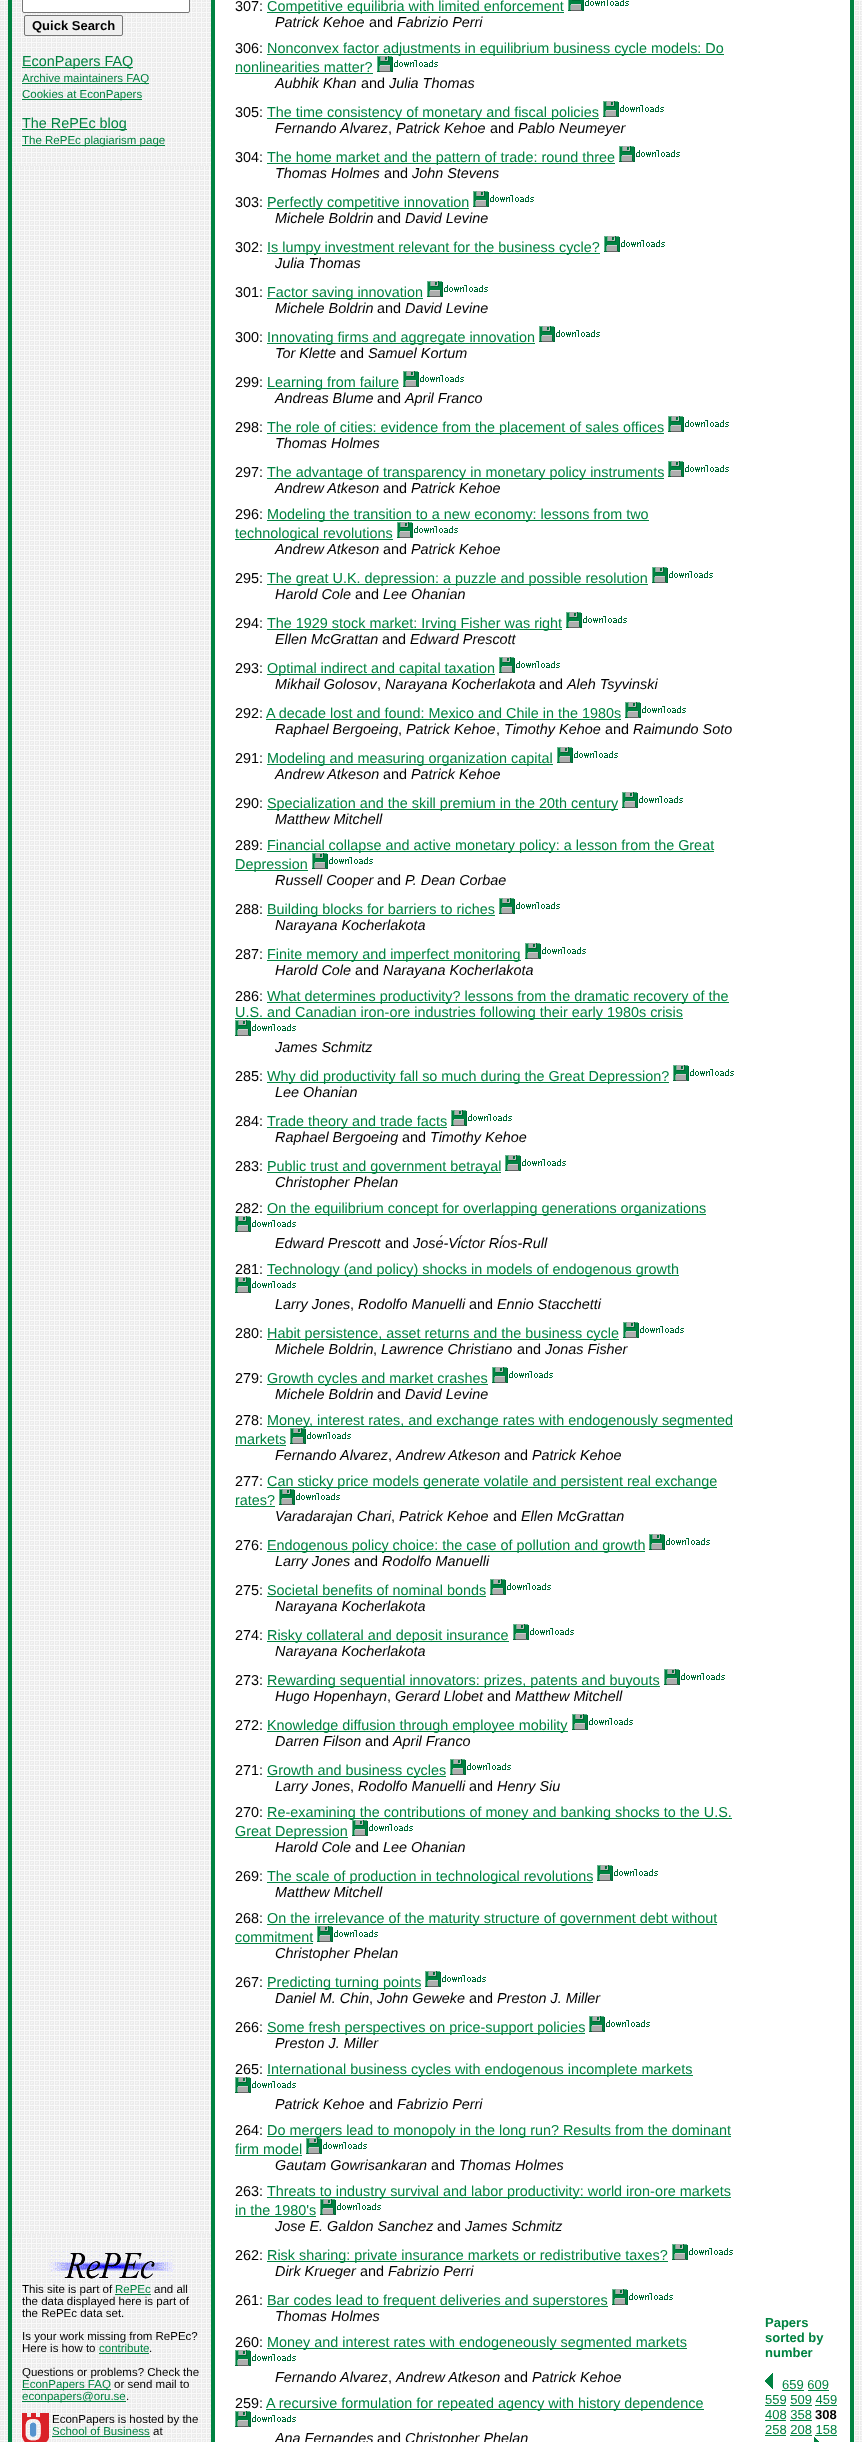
<?xml version="1.0" encoding="UTF-8"?>
<svg xmlns="http://www.w3.org/2000/svg" width="862" height="2442">
    <rect width="100%" height="100%" fill="#FFFFFF"/>
    <image x="0" y="0" width="862" height="2442" href="img_01.png"/>
    <rect x="8" y="0" width="4" height="2442" fill="#008241"/>
    <rect x="850" y="0" width="4" height="2442" fill="#008241"/>
    <image x="12" y="0" width="199" height="166" href="img_02.png"/>
    <rect x="22.5" y="-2.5" width="167" height="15" rx="1.5" fill="#FFFFFF" stroke="#767676"/>
    <rect x="24.5" y="15.5" width="98" height="20" rx="1.5" fill="#EFEFEF" stroke="#767676"/>
    <text x="32" y="30" font-family="Liberation Sans" font-size="13" font-weight="700" fill="#000000">Quick Search</text>
    <rect x="22" y="67" width="111" height="1" fill="#008241"/>
    <text x="22" y="66" font-family="Liberation Sans" font-size="14.4" fill="#008241">EconPapers FAQ</text>
    <rect x="22" y="83" width="127" height="1" fill="#008241"/>
    <text x="22" y="82" font-family="Liberation Sans" font-size="11.5" fill="#008241">Archive maintainers FAQ</text>
    <rect x="22" y="99" width="120" height="1" fill="#008241"/>
    <text x="22" y="98" font-family="Liberation Sans" font-size="11.5" fill="#008241">Cookies at EconPapers</text>
    <rect x="22" y="129" width="105" height="1" fill="#008241"/>
    <text x="22" y="128" font-family="Liberation Sans" font-size="14.4" fill="#008241">The RePEc blog</text>
    <rect x="22" y="145" width="143" height="1" fill="#008241"/>
    <text x="22" y="144" font-family="Liberation Sans" font-size="11.5" fill="#008241">The RePEc plagiarism page</text>
    <rect x="211" y="0" width="4" height="2442" fill="#008241"/>
    <rect x="215" y="0" width="635" height="2442" fill="#FFFFFF"/>
    <text x="235" y="11" font-family="Liberation Sans" font-size="14.4" fill="#000000">307:</text>
    <rect x="267" y="12" width="297" height="1" fill="#008241"/>
    <text x="267" y="11" font-family="Liberation Sans" font-size="14.4" fill="#008241">Competitive equilibria with limited enforcement</text>
    <image x="568" y="0" width="61" height="11" href="img_03.png"/>
    <text x="275" y="27" font-family="Liberation Sans" font-size="14.4" font-style="italic" fill="#000000">Patrick Kehoe</text>
    <text x="369" y="27" font-family="Liberation Sans" font-size="14.4" fill="#000000">and</text>
    <text x="397" y="27" font-family="Liberation Sans" font-size="14.4" font-style="italic" fill="#000000">Fabrizio Perri</text>
    <text x="235" y="53" font-family="Liberation Sans" font-size="14.4" fill="#000000">306:</text>
    <rect x="267" y="54" width="457" height="1" fill="#008241"/>
    <text x="267" y="53" font-family="Liberation Sans" font-size="14.4" fill="#008241">Nonconvex factor adjustments in equilibrium business cycle models: Do</text>
    <text x="235" y="72" font-family="Liberation Sans" font-size="14.4" fill="#008241">nonlinearities matter?</text>
    <rect x="235" y="73" width="138" height="1" fill="#008241"/>
    <image x="377" y="56" width="61" height="16" href="img_04.png"/>
    <text x="275" y="88" font-family="Liberation Sans" font-size="14.4" font-style="italic" fill="#000000">Aubhik Khan</text>
    <text x="361" y="88" font-family="Liberation Sans" font-size="14.4" fill="#000000">and</text>
    <text x="389" y="88" font-family="Liberation Sans" font-size="14.4" font-style="italic" fill="#000000">Julia Thomas</text>
    <text x="235" y="117" font-family="Liberation Sans" font-size="14.4" fill="#000000">305:</text>
    <rect x="267" y="118" width="332" height="1" fill="#008241"/>
    <text x="267" y="117" font-family="Liberation Sans" font-size="14.4" fill="#008241">The time consistency of monetary and fiscal policies</text>
    <image x="603" y="101" width="61" height="16" href="img_04.png"/>
    <text x="275" y="133" font-family="Liberation Sans" font-size="14.4" font-style="italic" fill="#000000">Fernando Alvarez</text>
    <text x="388" y="133" font-family="Liberation Sans" font-size="14.4" fill="#000000">,</text>
    <text x="396" y="133" font-family="Liberation Sans" font-size="14.4" font-style="italic" fill="#000000">Patrick Kehoe</text>
    <text x="490" y="133" font-family="Liberation Sans" font-size="14.4" fill="#000000">and</text>
    <text x="518" y="133" font-family="Liberation Sans" font-size="14.4" font-style="italic" fill="#000000">Pablo Neumeyer</text>
    <text x="235" y="162" font-family="Liberation Sans" font-size="14.4" fill="#000000">304:</text>
    <rect x="267" y="163" width="348" height="1" fill="#008241"/>
    <text x="267" y="162" font-family="Liberation Sans" font-size="14.4" fill="#008241">The home market and the pattern of trade: round three</text>
    <image x="619" y="146" width="61" height="16" href="img_04.png"/>
    <text x="275" y="178" font-family="Liberation Sans" font-size="14.4" font-style="italic" fill="#000000">Thomas Holmes</text>
    <text x="384" y="178" font-family="Liberation Sans" font-size="14.4" fill="#000000">and</text>
    <text x="412" y="178" font-family="Liberation Sans" font-size="14.4" font-style="italic" fill="#000000">John Stevens</text>
    <text x="235" y="207" font-family="Liberation Sans" font-size="14.4" fill="#000000">303:</text>
    <rect x="267" y="208" width="202" height="1" fill="#008241"/>
    <text x="267" y="207" font-family="Liberation Sans" font-size="14.4" fill="#008241">Perfectly competitive innovation</text>
    <image x="473" y="191" width="61" height="16" href="img_04.png"/>
    <text x="275" y="223" font-family="Liberation Sans" font-size="14.4" font-style="italic" fill="#000000">Michele Boldrin</text>
    <text x="377" y="223" font-family="Liberation Sans" font-size="14.4" fill="#000000">and</text>
    <text x="405" y="223" font-family="Liberation Sans" font-size="14.4" font-style="italic" fill="#000000">David Levine</text>
    <text x="235" y="252" font-family="Liberation Sans" font-size="14.4" fill="#000000">302:</text>
    <rect x="267" y="253" width="333" height="1" fill="#008241"/>
    <text x="267" y="252" font-family="Liberation Sans" font-size="14.4" fill="#008241">Is lumpy investment relevant for the business cycle?</text>
    <image x="604" y="236" width="61" height="16" href="img_04.png"/>
    <text x="275" y="268" font-family="Liberation Sans" font-size="14.4" font-style="italic" fill="#000000">Julia Thomas</text>
    <text x="235" y="297" font-family="Liberation Sans" font-size="14.4" fill="#000000">301:</text>
    <rect x="267" y="298" width="156" height="1" fill="#008241"/>
    <text x="267" y="297" font-family="Liberation Sans" font-size="14.4" fill="#008241">Factor saving innovation</text>
    <image x="427" y="281" width="61" height="16" href="img_04.png"/>
    <text x="275" y="313" font-family="Liberation Sans" font-size="14.4" font-style="italic" fill="#000000">Michele Boldrin</text>
    <text x="377" y="313" font-family="Liberation Sans" font-size="14.4" fill="#000000">and</text>
    <text x="405" y="313" font-family="Liberation Sans" font-size="14.4" font-style="italic" fill="#000000">David Levine</text>
    <text x="235" y="342" font-family="Liberation Sans" font-size="14.4" fill="#000000">300:</text>
    <rect x="267" y="343" width="268" height="1" fill="#008241"/>
    <text x="267" y="342" font-family="Liberation Sans" font-size="14.4" fill="#008241">Innovating firms and aggregate innovation</text>
    <image x="539" y="326" width="61" height="16" href="img_04.png"/>
    <text x="275" y="358" font-family="Liberation Sans" font-size="14.4" font-style="italic" fill="#000000">Tor Klette</text>
    <text x="340" y="358" font-family="Liberation Sans" font-size="14.4" fill="#000000">and</text>
    <text x="368" y="358" font-family="Liberation Sans" font-size="14.4" font-style="italic" fill="#000000">Samuel Kortum</text>
    <text x="235" y="387" font-family="Liberation Sans" font-size="14.4" fill="#000000">299:</text>
    <rect x="267" y="388" width="132" height="1" fill="#008241"/>
    <text x="267" y="387" font-family="Liberation Sans" font-size="14.4" fill="#008241">Learning from failure</text>
    <image x="403" y="371" width="61" height="16" href="img_04.png"/>
    <text x="275" y="403" font-family="Liberation Sans" font-size="14.4" font-style="italic" fill="#000000">Andreas Blume</text>
    <text x="377" y="403" font-family="Liberation Sans" font-size="14.4" fill="#000000">and</text>
    <text x="405" y="403" font-family="Liberation Sans" font-size="14.4" font-style="italic" fill="#000000">April Franco</text>
    <text x="235" y="432" font-family="Liberation Sans" font-size="14.4" fill="#000000">298:</text>
    <rect x="267" y="433" width="397" height="1" fill="#008241"/>
    <text x="267" y="432" font-family="Liberation Sans" font-size="14.4" fill="#008241">The role of cities: evidence from the placement of sales offices</text>
    <image x="668" y="416" width="61" height="16" href="img_04.png"/>
    <text x="275" y="448" font-family="Liberation Sans" font-size="14.4" font-style="italic" fill="#000000">Thomas Holmes</text>
    <text x="235" y="477" font-family="Liberation Sans" font-size="14.4" fill="#000000">297:</text>
    <rect x="267" y="478" width="397" height="1" fill="#008241"/>
    <text x="267" y="477" font-family="Liberation Sans" font-size="14.4" fill="#008241">The advantage of transparency in monetary policy instruments</text>
    <image x="668" y="461" width="61" height="16" href="img_04.png"/>
    <text x="275" y="493" font-family="Liberation Sans" font-size="14.4" font-style="italic" fill="#000000">Andrew Atkeson</text>
    <text x="383" y="493" font-family="Liberation Sans" font-size="14.4" fill="#000000">and</text>
    <text x="411" y="493" font-family="Liberation Sans" font-size="14.4" font-style="italic" fill="#000000">Patrick Kehoe</text>
    <text x="235" y="519" font-family="Liberation Sans" font-size="14.4" fill="#000000">296:</text>
    <rect x="267" y="520" width="382" height="1" fill="#008241"/>
    <text x="267" y="519" font-family="Liberation Sans" font-size="14.4" fill="#008241">Modeling the transition to a new economy: lessons from two</text>
    <rect x="235" y="539" width="158" height="1" fill="#008241"/>
    <text x="235" y="538" font-family="Liberation Sans" font-size="14.4" fill="#008241">technological revolutions</text>
    <image x="397" y="522" width="61" height="16" href="img_04.png"/>
    <text x="275" y="554" font-family="Liberation Sans" font-size="14.4" font-style="italic" fill="#000000">Andrew Atkeson</text>
    <text x="383" y="554" font-family="Liberation Sans" font-size="14.4" fill="#000000">and</text>
    <text x="411" y="554" font-family="Liberation Sans" font-size="14.4" font-style="italic" fill="#000000">Patrick Kehoe</text>
    <text x="235" y="583" font-family="Liberation Sans" font-size="14.4" fill="#000000">295:</text>
    <rect x="267" y="584" width="381" height="1" fill="#008241"/>
    <text x="267" y="583" font-family="Liberation Sans" font-size="14.4" fill="#008241">The great U.K. depression: a puzzle and possible resolution</text>
    <image x="652" y="567" width="61" height="16" href="img_04.png"/>
    <text x="275" y="599" font-family="Liberation Sans" font-size="14.4" font-style="italic" fill="#000000">Harold Cole</text>
    <text x="355" y="599" font-family="Liberation Sans" font-size="14.4" fill="#000000">and</text>
    <text x="383" y="599" font-family="Liberation Sans" font-size="14.4" font-style="italic" fill="#000000">Lee Ohanian</text>
    <text x="235" y="628" font-family="Liberation Sans" font-size="14.4" fill="#000000">294:</text>
    <rect x="267" y="629" width="295" height="1" fill="#008241"/>
    <text x="267" y="628" font-family="Liberation Sans" font-size="14.4" fill="#008241">The 1929 stock market: Irving Fisher was right</text>
    <image x="566" y="612" width="61" height="16" href="img_04.png"/>
    <text x="275" y="644" font-family="Liberation Sans" font-size="14.4" font-style="italic" fill="#000000">Ellen McGrattan</text>
    <text x="382" y="644" font-family="Liberation Sans" font-size="14.4" fill="#000000">and</text>
    <text x="410" y="644" font-family="Liberation Sans" font-size="14.4" font-style="italic" fill="#000000">Edward Prescott</text>
    <text x="235" y="673" font-family="Liberation Sans" font-size="14.4" fill="#000000">293:</text>
    <rect x="267" y="674" width="228" height="1" fill="#008241"/>
    <text x="267" y="673" font-family="Liberation Sans" font-size="14.4" fill="#008241">Optimal indirect and capital taxation</text>
    <image x="499" y="657" width="61" height="16" href="img_04.png"/>
    <text x="275" y="689" font-family="Liberation Sans" font-size="14.4" font-style="italic" fill="#000000">Mikhail Golosov</text>
    <text x="377" y="689" font-family="Liberation Sans" font-size="14.4" fill="#000000">,</text>
    <text x="385" y="689" font-family="Liberation Sans" font-size="14.4" font-style="italic" fill="#000000">Narayana Kocherlakota</text>
    <text x="539" y="689" font-family="Liberation Sans" font-size="14.4" fill="#000000">and</text>
    <text x="567" y="689" font-family="Liberation Sans" font-size="14.4" font-style="italic" fill="#000000">Aleh Tsyvinski</text>
    <text x="235" y="718" font-family="Liberation Sans" font-size="14.4" fill="#000000">292:</text>
    <text x="266" y="718" font-family="Liberation Sans" font-size="14.4" fill="#008241">A decade lost and found: Mexico and Chile in the 1980s</text>
    <rect x="266" y="719" width="355" height="1" fill="#008241"/>
    <image x="625" y="702" width="61" height="16" href="img_04.png"/>
    <text x="275" y="734" font-family="Liberation Sans" font-size="14.4" font-style="italic" fill="#000000">Raphael Bergoeing</text>
    <text x="398" y="734" font-family="Liberation Sans" font-size="14.4" fill="#000000">,</text>
    <text x="406" y="734" font-family="Liberation Sans" font-size="14.4" font-style="italic" fill="#000000">Patrick Kehoe</text>
    <text x="496" y="734" font-family="Liberation Sans" font-size="14.4" fill="#000000">,</text>
    <text x="504" y="734" font-family="Liberation Sans" font-size="14.4" font-style="italic" fill="#000000">Timothy Kehoe</text>
    <text x="605" y="734" font-family="Liberation Sans" font-size="14.4" fill="#000000">and</text>
    <text x="633" y="734" font-family="Liberation Sans" font-size="14.4" font-style="italic" fill="#000000">Raimundo Soto</text>
    <text x="235" y="763" font-family="Liberation Sans" font-size="14.4" fill="#000000">291:</text>
    <rect x="267" y="764" width="286" height="1" fill="#008241"/>
    <text x="267" y="763" font-family="Liberation Sans" font-size="14.4" fill="#008241">Modeling and measuring organization capital</text>
    <image x="557" y="747" width="61" height="16" href="img_04.png"/>
    <text x="275" y="779" font-family="Liberation Sans" font-size="14.4" font-style="italic" fill="#000000">Andrew Atkeson</text>
    <text x="383" y="779" font-family="Liberation Sans" font-size="14.4" fill="#000000">and</text>
    <text x="411" y="779" font-family="Liberation Sans" font-size="14.4" font-style="italic" fill="#000000">Patrick Kehoe</text>
    <text x="235" y="808" font-family="Liberation Sans" font-size="14.4" fill="#000000">290:</text>
    <rect x="267" y="809" width="351" height="1" fill="#008241"/>
    <text x="267" y="808" font-family="Liberation Sans" font-size="14.4" fill="#008241">Specialization and the skill premium in the 20th century</text>
    <image x="622" y="792" width="61" height="16" href="img_04.png"/>
    <text x="275" y="824" font-family="Liberation Sans" font-size="14.4" font-style="italic" fill="#000000">Matthew Mitchell</text>
    <text x="235" y="850" font-family="Liberation Sans" font-size="14.4" fill="#000000">289:</text>
    <rect x="267" y="851" width="447" height="1" fill="#008241"/>
    <text x="267" y="850" font-family="Liberation Sans" font-size="14.4" fill="#008241">Financial collapse and active monetary policy: a lesson from the Great</text>
    <rect x="235" y="870" width="73" height="1" fill="#008241"/>
    <text x="235" y="869" font-family="Liberation Sans" font-size="14.4" fill="#008241">Depression</text>
    <image x="312" y="853" width="61" height="16" href="img_04.png"/>
    <text x="275" y="885" font-family="Liberation Sans" font-size="14.4" font-style="italic" fill="#000000">Russell Cooper</text>
    <text x="377" y="885" font-family="Liberation Sans" font-size="14.4" fill="#000000">and</text>
    <text x="405" y="885" font-family="Liberation Sans" font-size="14.4" font-style="italic" fill="#000000">P. Dean Corbae</text>
    <text x="235" y="914" font-family="Liberation Sans" font-size="14.4" fill="#000000">288:</text>
    <rect x="267" y="915" width="228" height="1" fill="#008241"/>
    <text x="267" y="914" font-family="Liberation Sans" font-size="14.4" fill="#008241">Building blocks for barriers to riches</text>
    <image x="499" y="898" width="61" height="16" href="img_04.png"/>
    <text x="275" y="930" font-family="Liberation Sans" font-size="14.4" font-style="italic" fill="#000000">Narayana Kocherlakota</text>
    <text x="235" y="959" font-family="Liberation Sans" font-size="14.4" fill="#000000">287:</text>
    <rect x="267" y="960" width="254" height="1" fill="#008241"/>
    <text x="267" y="959" font-family="Liberation Sans" font-size="14.4" fill="#008241">Finite memory and imperfect monitoring</text>
    <image x="525" y="943" width="61" height="16" href="img_04.png"/>
    <text x="275" y="975" font-family="Liberation Sans" font-size="14.4" font-style="italic" fill="#000000">Harold Cole</text>
    <text x="355" y="975" font-family="Liberation Sans" font-size="14.4" fill="#000000">and</text>
    <text x="383" y="975" font-family="Liberation Sans" font-size="14.4" font-style="italic" fill="#000000">Narayana Kocherlakota</text>
    <text x="235" y="1001" font-family="Liberation Sans" font-size="14.4" fill="#000000">286:</text>
    <rect x="267" y="1002" width="462" height="1" fill="#008241"/>
    <text x="267" y="1001" font-family="Liberation Sans" font-size="14.4" fill="#008241">What determines productivity? lessons from the dramatic recovery of the</text>
    <rect x="235" y="1018" width="448" height="1" fill="#008241"/>
    <text x="235" y="1017" font-family="Liberation Sans" font-size="14.4" fill="#008241">U.S. and Canadian iron-ore industries following their early 1980s crisis</text>
    <image x="235" y="1020" width="61" height="16" href="img_04.png"/>
    <text x="275" y="1052" font-family="Liberation Sans" font-size="14.4" font-style="italic" fill="#000000">James Schmitz</text>
    <text x="235" y="1081" font-family="Liberation Sans" font-size="14.4" fill="#000000">285:</text>
    <rect x="267" y="1082" width="402" height="1" fill="#008241"/>
    <text x="267" y="1081" font-family="Liberation Sans" font-size="14.4" fill="#008241">Why did productivity fall so much during the Great Depression?</text>
    <image x="673" y="1065" width="61" height="16" href="img_04.png"/>
    <text x="275" y="1097" font-family="Liberation Sans" font-size="14.4" font-style="italic" fill="#000000">Lee Ohanian</text>
    <text x="235" y="1126" font-family="Liberation Sans" font-size="14.4" fill="#000000">284:</text>
    <rect x="267" y="1127" width="180" height="1" fill="#008241"/>
    <text x="267" y="1126" font-family="Liberation Sans" font-size="14.4" fill="#008241">Trade theory and trade facts</text>
    <image x="451" y="1110" width="61" height="16" href="img_04.png"/>
    <text x="275" y="1142" font-family="Liberation Sans" font-size="14.4" font-style="italic" fill="#000000">Raphael Bergoeing</text>
    <text x="402" y="1142" font-family="Liberation Sans" font-size="14.4" fill="#000000">and</text>
    <text x="430" y="1142" font-family="Liberation Sans" font-size="14.4" font-style="italic" fill="#000000">Timothy Kehoe</text>
    <text x="235" y="1171" font-family="Liberation Sans" font-size="14.4" fill="#000000">283:</text>
    <rect x="267" y="1172" width="234" height="1" fill="#008241"/>
    <text x="267" y="1171" font-family="Liberation Sans" font-size="14.4" fill="#008241">Public trust and government betrayal</text>
    <image x="505" y="1155" width="61" height="16" href="img_04.png"/>
    <text x="275" y="1187" font-family="Liberation Sans" font-size="14.4" font-style="italic" fill="#000000">Christopher Phelan</text>
    <text x="235" y="1213" font-family="Liberation Sans" font-size="14.4" fill="#000000">282:</text>
    <rect x="267" y="1214" width="439" height="1" fill="#008241"/>
    <text x="267" y="1213" font-family="Liberation Sans" font-size="14.4" fill="#008241">On the equilibrium concept for overlapping generations organizations</text>
    <image x="235" y="1216" width="61" height="16" href="img_04.png"/>
    <text x="275" y="1248" font-family="Liberation Sans" font-size="14.4" font-style="italic" fill="#000000">Edward Prescott</text>
    <text x="385" y="1248" font-family="Liberation Sans" font-size="14.4" fill="#000000">and</text>
    <text x="413" y="1248" font-family="Liberation Sans" font-size="14.4" font-style="italic" fill="#000000">José-Víctor Ríos-Rull</text>
    <text x="235" y="1274" font-family="Liberation Sans" font-size="14.4" fill="#000000">281:</text>
    <rect x="267" y="1275" width="412" height="1" fill="#008241"/>
    <text x="267" y="1274" font-family="Liberation Sans" font-size="14.4" fill="#008241">Technology (and policy) shocks in models of endogenous growth</text>
    <image x="235" y="1277" width="61" height="16" href="img_04.png"/>
    <text x="275" y="1309" font-family="Liberation Sans" font-size="14.4" font-style="italic" fill="#000000">Larry Jones</text>
    <text x="350" y="1309" font-family="Liberation Sans" font-size="14.4" fill="#000000">,</text>
    <text x="358" y="1309" font-family="Liberation Sans" font-size="14.4" font-style="italic" fill="#000000">Rodolfo Manuelli</text>
    <text x="469" y="1309" font-family="Liberation Sans" font-size="14.4" fill="#000000">and</text>
    <text x="497" y="1309" font-family="Liberation Sans" font-size="14.4" font-style="italic" fill="#000000">Ennio Stacchetti</text>
    <text x="235" y="1338" font-family="Liberation Sans" font-size="14.4" fill="#000000">280:</text>
    <rect x="267" y="1339" width="352" height="1" fill="#008241"/>
    <text x="267" y="1338" font-family="Liberation Sans" font-size="14.4" fill="#008241">Habit persistence, asset returns and the business cycle</text>
    <image x="623" y="1322" width="61" height="16" href="img_04.png"/>
    <text x="275" y="1354" font-family="Liberation Sans" font-size="14.4" font-style="italic" fill="#000000">Michele Boldrin</text>
    <text x="373" y="1354" font-family="Liberation Sans" font-size="14.4" fill="#000000">,</text>
    <text x="381" y="1354" font-family="Liberation Sans" font-size="14.4" font-style="italic" fill="#000000">Lawrence Christiano</text>
    <text x="517" y="1354" font-family="Liberation Sans" font-size="14.4" fill="#000000">and</text>
    <text x="545" y="1354" font-family="Liberation Sans" font-size="14.4" font-style="italic" fill="#000000">Jonas Fisher</text>
    <text x="235" y="1383" font-family="Liberation Sans" font-size="14.4" fill="#000000">279:</text>
    <rect x="267" y="1384" width="221" height="1" fill="#008241"/>
    <text x="267" y="1383" font-family="Liberation Sans" font-size="14.4" fill="#008241">Growth cycles and market crashes</text>
    <image x="492" y="1367" width="61" height="16" href="img_04.png"/>
    <text x="275" y="1399" font-family="Liberation Sans" font-size="14.4" font-style="italic" fill="#000000">Michele Boldrin</text>
    <text x="377" y="1399" font-family="Liberation Sans" font-size="14.4" fill="#000000">and</text>
    <text x="405" y="1399" font-family="Liberation Sans" font-size="14.4" font-style="italic" fill="#000000">David Levine</text>
    <text x="235" y="1425" font-family="Liberation Sans" font-size="14.4" fill="#000000">278:</text>
    <rect x="267" y="1426" width="466" height="1" fill="#008241"/>
    <text x="267" y="1425" font-family="Liberation Sans" font-size="14.4" fill="#008241">Money, interest rates, and exchange rates with endogenously segmented</text>
    <text x="235" y="1444" font-family="Liberation Sans" font-size="14.4" fill="#008241">markets</text>
    <rect x="235" y="1445" width="51" height="1" fill="#008241"/>
    <image x="290" y="1428" width="61" height="16" href="img_04.png"/>
    <text x="275" y="1460" font-family="Liberation Sans" font-size="14.4" font-style="italic" fill="#000000">Fernando Alvarez</text>
    <text x="388" y="1460" font-family="Liberation Sans" font-size="14.4" fill="#000000">,</text>
    <text x="396" y="1460" font-family="Liberation Sans" font-size="14.4" font-style="italic" fill="#000000">Andrew Atkeson</text>
    <text x="504" y="1460" font-family="Liberation Sans" font-size="14.4" fill="#000000">and</text>
    <text x="532" y="1460" font-family="Liberation Sans" font-size="14.4" font-style="italic" fill="#000000">Patrick Kehoe</text>
    <text x="235" y="1486" font-family="Liberation Sans" font-size="14.4" fill="#000000">277:</text>
    <rect x="267" y="1487" width="450" height="1" fill="#008241"/>
    <text x="267" y="1486" font-family="Liberation Sans" font-size="14.4" fill="#008241">Can sticky price models generate volatile and persistent real exchange</text>
    <text x="235" y="1505" font-family="Liberation Sans" font-size="14.4" fill="#008241">rates?</text>
    <rect x="235" y="1506" width="40" height="1" fill="#008241"/>
    <image x="279" y="1489" width="61" height="16" href="img_04.png"/>
    <text x="275" y="1521" font-family="Liberation Sans" font-size="14.4" font-style="italic" fill="#000000">Varadarajan Chari</text>
    <text x="391" y="1521" font-family="Liberation Sans" font-size="14.4" fill="#000000">,</text>
    <text x="399" y="1521" font-family="Liberation Sans" font-size="14.4" font-style="italic" fill="#000000">Patrick Kehoe</text>
    <text x="493" y="1521" font-family="Liberation Sans" font-size="14.4" fill="#000000">and</text>
    <text x="521" y="1521" font-family="Liberation Sans" font-size="14.4" font-style="italic" fill="#000000">Ellen McGrattan</text>
    <text x="235" y="1550" font-family="Liberation Sans" font-size="14.4" fill="#000000">276:</text>
    <rect x="267" y="1551" width="378" height="1" fill="#008241"/>
    <text x="267" y="1550" font-family="Liberation Sans" font-size="14.4" fill="#008241">Endogenous policy choice: the case of pollution and growth</text>
    <image x="649" y="1534" width="61" height="16" href="img_04.png"/>
    <text x="275" y="1566" font-family="Liberation Sans" font-size="14.4" font-style="italic" fill="#000000">Larry Jones</text>
    <text x="354" y="1566" font-family="Liberation Sans" font-size="14.4" fill="#000000">and</text>
    <text x="382" y="1566" font-family="Liberation Sans" font-size="14.4" font-style="italic" fill="#000000">Rodolfo Manuelli</text>
    <text x="235" y="1595" font-family="Liberation Sans" font-size="14.4" fill="#000000">275:</text>
    <text x="267" y="1595" font-family="Liberation Sans" font-size="14.4" fill="#008241">Societal benefits of nominal bonds</text>
    <rect x="267" y="1596" width="219" height="1" fill="#008241"/>
    <image x="490" y="1579" width="61" height="16" href="img_04.png"/>
    <text x="275" y="1611" font-family="Liberation Sans" font-size="14.4" font-style="italic" fill="#000000">Narayana Kocherlakota</text>
    <text x="235" y="1640" font-family="Liberation Sans" font-size="14.4" fill="#000000">274:</text>
    <rect x="267" y="1641" width="242" height="1" fill="#008241"/>
    <text x="267" y="1640" font-family="Liberation Sans" font-size="14.4" fill="#008241">Risky collateral and deposit insurance</text>
    <image x="513" y="1624" width="61" height="16" href="img_04.png"/>
    <text x="275" y="1656" font-family="Liberation Sans" font-size="14.4" font-style="italic" fill="#000000">Narayana Kocherlakota</text>
    <text x="235" y="1685" font-family="Liberation Sans" font-size="14.4" fill="#000000">273:</text>
    <rect x="267" y="1686" width="393" height="1" fill="#008241"/>
    <text x="267" y="1685" font-family="Liberation Sans" font-size="14.4" fill="#008241">Rewarding sequential innovators: prizes, patents and buyouts</text>
    <image x="664" y="1669" width="61" height="16" href="img_04.png"/>
    <text x="275" y="1701" font-family="Liberation Sans" font-size="14.4" font-style="italic" fill="#000000">Hugo Hopenhayn</text>
    <text x="387" y="1701" font-family="Liberation Sans" font-size="14.4" fill="#000000">,</text>
    <text x="395" y="1701" font-family="Liberation Sans" font-size="14.4" font-style="italic" fill="#000000">Gerard Llobet</text>
    <text x="487" y="1701" font-family="Liberation Sans" font-size="14.4" fill="#000000">and</text>
    <text x="515" y="1701" font-family="Liberation Sans" font-size="14.4" font-style="italic" fill="#000000">Matthew Mitchell</text>
    <text x="235" y="1730" font-family="Liberation Sans" font-size="14.4" fill="#000000">272:</text>
    <rect x="267" y="1731" width="301" height="1" fill="#008241"/>
    <text x="267" y="1730" font-family="Liberation Sans" font-size="14.4" fill="#008241">Knowledge diffusion through employee mobility</text>
    <image x="572" y="1714" width="61" height="16" href="img_04.png"/>
    <text x="275" y="1746" font-family="Liberation Sans" font-size="14.4" font-style="italic" fill="#000000">Darren Filson</text>
    <text x="365" y="1746" font-family="Liberation Sans" font-size="14.4" fill="#000000">and</text>
    <text x="393" y="1746" font-family="Liberation Sans" font-size="14.4" font-style="italic" fill="#000000">April Franco</text>
    <text x="235" y="1775" font-family="Liberation Sans" font-size="14.4" fill="#000000">271:</text>
    <rect x="267" y="1776" width="179" height="1" fill="#008241"/>
    <text x="267" y="1775" font-family="Liberation Sans" font-size="14.4" fill="#008241">Growth and business cycles</text>
    <image x="450" y="1759" width="61" height="16" href="img_04.png"/>
    <text x="275" y="1791" font-family="Liberation Sans" font-size="14.4" font-style="italic" fill="#000000">Larry Jones</text>
    <text x="350" y="1791" font-family="Liberation Sans" font-size="14.4" fill="#000000">,</text>
    <text x="358" y="1791" font-family="Liberation Sans" font-size="14.4" font-style="italic" fill="#000000">Rodolfo Manuelli</text>
    <text x="469" y="1791" font-family="Liberation Sans" font-size="14.4" fill="#000000">and</text>
    <text x="497" y="1791" font-family="Liberation Sans" font-size="14.4" font-style="italic" fill="#000000">Henry Siu</text>
    <text x="235" y="1817" font-family="Liberation Sans" font-size="14.4" fill="#000000">270:</text>
    <rect x="267" y="1818" width="465" height="1" fill="#008241"/>
    <text x="267" y="1817" font-family="Liberation Sans" font-size="14.4" fill="#008241">Re-examining the contributions of money and banking shocks to the U.S.</text>
    <rect x="235" y="1837" width="113" height="1" fill="#008241"/>
    <text x="235" y="1836" font-family="Liberation Sans" font-size="14.4" fill="#008241">Great Depression</text>
    <image x="352" y="1820" width="61" height="16" href="img_04.png"/>
    <text x="275" y="1852" font-family="Liberation Sans" font-size="14.4" font-style="italic" fill="#000000">Harold Cole</text>
    <text x="355" y="1852" font-family="Liberation Sans" font-size="14.4" fill="#000000">and</text>
    <text x="383" y="1852" font-family="Liberation Sans" font-size="14.4" font-style="italic" fill="#000000">Lee Ohanian</text>
    <text x="235" y="1881" font-family="Liberation Sans" font-size="14.4" fill="#000000">269:</text>
    <rect x="267" y="1882" width="326" height="1" fill="#008241"/>
    <text x="267" y="1881" font-family="Liberation Sans" font-size="14.4" fill="#008241">The scale of production in technological revolutions</text>
    <image x="597" y="1865" width="61" height="16" href="img_04.png"/>
    <text x="275" y="1897" font-family="Liberation Sans" font-size="14.4" font-style="italic" fill="#000000">Matthew Mitchell</text>
    <text x="235" y="1923" font-family="Liberation Sans" font-size="14.4" fill="#000000">268:</text>
    <rect x="267" y="1924" width="450" height="1" fill="#008241"/>
    <text x="267" y="1923" font-family="Liberation Sans" font-size="14.4" fill="#008241">On the irrelevance of the maturity structure of government debt without</text>
    <text x="235" y="1942" font-family="Liberation Sans" font-size="14.4" fill="#008241">commitment</text>
    <rect x="235" y="1943" width="78" height="1" fill="#008241"/>
    <image x="317" y="1926" width="61" height="16" href="img_04.png"/>
    <text x="275" y="1958" font-family="Liberation Sans" font-size="14.4" font-style="italic" fill="#000000">Christopher Phelan</text>
    <text x="235" y="1987" font-family="Liberation Sans" font-size="14.4" fill="#000000">267:</text>
    <rect x="267" y="1988" width="154" height="1" fill="#008241"/>
    <text x="267" y="1987" font-family="Liberation Sans" font-size="14.4" fill="#008241">Predicting turning points</text>
    <image x="425" y="1971" width="61" height="16" href="img_04.png"/>
    <text x="275" y="2003" font-family="Liberation Sans" font-size="14.4" font-style="italic" fill="#000000">Daniel M. Chin</text>
    <text x="369" y="2003" font-family="Liberation Sans" font-size="14.4" fill="#000000">,</text>
    <text x="377" y="2003" font-family="Liberation Sans" font-size="14.4" font-style="italic" fill="#000000">John Geweke</text>
    <text x="469" y="2003" font-family="Liberation Sans" font-size="14.4" fill="#000000">and</text>
    <text x="497" y="2003" font-family="Liberation Sans" font-size="14.4" font-style="italic" fill="#000000">Preston J. Miller</text>
    <text x="235" y="2032" font-family="Liberation Sans" font-size="14.4" fill="#000000">266:</text>
    <rect x="267" y="2033" width="318" height="1" fill="#008241"/>
    <text x="267" y="2032" font-family="Liberation Sans" font-size="14.4" fill="#008241">Some fresh perspectives on price-support policies</text>
    <image x="589" y="2016" width="61" height="16" href="img_04.png"/>
    <text x="275" y="2048" font-family="Liberation Sans" font-size="14.4" font-style="italic" fill="#000000">Preston J. Miller</text>
    <text x="235" y="2074" font-family="Liberation Sans" font-size="14.4" fill="#000000">265:</text>
    <rect x="267" y="2075" width="426" height="1" fill="#008241"/>
    <text x="267" y="2074" font-family="Liberation Sans" font-size="14.4" fill="#008241">International business cycles with endogenous incomplete markets</text>
    <image x="235" y="2077" width="61" height="16" href="img_04.png"/>
    <text x="275" y="2109" font-family="Liberation Sans" font-size="14.4" font-style="italic" fill="#000000">Patrick Kehoe</text>
    <text x="369" y="2109" font-family="Liberation Sans" font-size="14.4" fill="#000000">and</text>
    <text x="397" y="2109" font-family="Liberation Sans" font-size="14.4" font-style="italic" fill="#000000">Fabrizio Perri</text>
    <text x="235" y="2135" font-family="Liberation Sans" font-size="14.4" fill="#000000">264:</text>
    <rect x="267" y="2136" width="464" height="1" fill="#008241"/>
    <text x="267" y="2135" font-family="Liberation Sans" font-size="14.4" fill="#008241">Do mergers lead to monopoly in the long run? Results from the dominant</text>
    <text x="235" y="2154" font-family="Liberation Sans" font-size="14.4" fill="#008241">firm model</text>
    <rect x="235" y="2155" width="67" height="1" fill="#008241"/>
    <image x="306" y="2138" width="61" height="16" href="img_04.png"/>
    <text x="275" y="2170" font-family="Liberation Sans" font-size="14.4" font-style="italic" fill="#000000">Gautam Gowrisankaran</text>
    <text x="431" y="2170" font-family="Liberation Sans" font-size="14.4" fill="#000000">and</text>
    <text x="459" y="2170" font-family="Liberation Sans" font-size="14.4" font-style="italic" fill="#000000">Thomas Holmes</text>
    <text x="235" y="2196" font-family="Liberation Sans" font-size="14.4" fill="#000000">263:</text>
    <rect x="267" y="2197" width="464" height="1" fill="#008241"/>
    <text x="267" y="2196" font-family="Liberation Sans" font-size="14.4" fill="#008241">Threats to industry survival and labor productivity: world iron-ore markets</text>
    <text x="235" y="2215" font-family="Liberation Sans" font-size="14.4" fill="#008241">in the 1980's</text>
    <rect x="235" y="2216" width="81" height="1" fill="#008241"/>
    <image x="320" y="2199" width="61" height="16" href="img_04.png"/>
    <text x="275" y="2231" font-family="Liberation Sans" font-size="14.4" font-style="italic" fill="#000000">Jose E. Galdon Sanchez</text>
    <text x="437" y="2231" font-family="Liberation Sans" font-size="14.4" fill="#000000">and</text>
    <text x="465" y="2231" font-family="Liberation Sans" font-size="14.4" font-style="italic" fill="#000000">James Schmitz</text>
    <text x="235" y="2260" font-family="Liberation Sans" font-size="14.4" fill="#000000">262:</text>
    <rect x="267" y="2261" width="401" height="1" fill="#008241"/>
    <text x="267" y="2260" font-family="Liberation Sans" font-size="14.4" fill="#008241">Risk sharing: private insurance markets or redistributive taxes?</text>
    <image x="672" y="2244" width="61" height="16" href="img_04.png"/>
    <text x="275" y="2276" font-family="Liberation Sans" font-size="14.4" font-style="italic" fill="#000000">Dirk Krueger</text>
    <text x="360" y="2276" font-family="Liberation Sans" font-size="14.4" fill="#000000">and</text>
    <text x="388" y="2276" font-family="Liberation Sans" font-size="14.4" font-style="italic" fill="#000000">Fabrizio Perri</text>
    <text x="235" y="2305" font-family="Liberation Sans" font-size="14.4" fill="#000000">261:</text>
    <rect x="267" y="2306" width="341" height="1" fill="#008241"/>
    <text x="267" y="2305" font-family="Liberation Sans" font-size="14.4" fill="#008241">Bar codes lead to frequent deliveries and superstores</text>
    <image x="612" y="2289" width="61" height="16" href="img_04.png"/>
    <text x="275" y="2321" font-family="Liberation Sans" font-size="14.4" font-style="italic" fill="#000000">Thomas Holmes</text>
    <text x="235" y="2347" font-family="Liberation Sans" font-size="14.4" fill="#000000">260:</text>
    <rect x="267" y="2348" width="420" height="1" fill="#008241"/>
    <text x="267" y="2347" font-family="Liberation Sans" font-size="14.4" fill="#008241">Money and interest rates with endogeneously segmented markets</text>
    <image x="235" y="2350" width="61" height="16" href="img_04.png"/>
    <text x="275" y="2382" font-family="Liberation Sans" font-size="14.4" font-style="italic" fill="#000000">Fernando Alvarez</text>
    <text x="388" y="2382" font-family="Liberation Sans" font-size="14.4" fill="#000000">,</text>
    <text x="396" y="2382" font-family="Liberation Sans" font-size="14.4" font-style="italic" fill="#000000">Andrew Atkeson</text>
    <text x="504" y="2382" font-family="Liberation Sans" font-size="14.4" fill="#000000">and</text>
    <text x="532" y="2382" font-family="Liberation Sans" font-size="14.4" font-style="italic" fill="#000000">Patrick Kehoe</text>
    <text x="235" y="2408" font-family="Liberation Sans" font-size="14.4" fill="#000000">259:</text>
    <rect x="266" y="2409" width="438" height="1" fill="#008241"/>
    <text x="266" y="2408" font-family="Liberation Sans" font-size="14.4" fill="#008241">A recursive formulation for repeated agency with history dependence</text>
    <image x="235" y="2411" width="61" height="16" href="img_04.png"/>
    <text x="275" y="2443" font-family="Liberation Sans" font-size="14.4" font-style="italic" fill="#000000">Ana Fernandes</text>
    <text x="377" y="2443" font-family="Liberation Sans" font-size="14.4" fill="#000000">and</text>
    <text x="405" y="2443" font-family="Liberation Sans" font-size="14.4" font-style="italic" fill="#000000">Christopher Phelan</text>
    <text font-family="Liberation Sans" font-size="13" font-weight="700" fill="#008241">
        <tspan x="765" y="2327">Papers</tspan>
        <tspan x="765" y="2342">sorted by</tspan>
        <tspan x="765" y="2357">number</tspan>
    </text>
    <image x="765" y="2373" width="8" height="16" href="img_05.png"/>
    <text x="782" y="2389" font-family="Liberation Sans" font-size="13" fill="#008241">659 609</text>
    <rect x="782" y="2390" width="22" height="1" fill="#008241"/>
    <rect x="808" y="2390" width="21" height="1" fill="#008241"/>
    <text x="765" y="2404" font-family="Liberation Sans" font-size="13" fill="#008241">559 509 459</text>
    <rect x="765" y="2405" width="21" height="1" fill="#008241"/>
    <rect x="790" y="2405" width="22" height="1" fill="#008241"/>
    <rect x="815" y="2405" width="22" height="1" fill="#008241"/>
    <text x="765" y="2419" font-family="Liberation Sans" font-size="13" fill="#008241">408 358</text>
    <rect x="765" y="2420" width="21" height="1" fill="#008241"/>
    <text x="815" y="2419" font-family="Liberation Sans" font-size="13" font-weight="700" fill="#000000">308</text>
    <rect x="790" y="2420" width="22" height="1" fill="#008241"/>
    <text x="765" y="2434" font-family="Liberation Sans" font-size="13" fill="#008241">258 208 158</text>
    <rect x="765" y="2435" width="21" height="1" fill="#008241"/>
    <rect x="790" y="2435" width="22" height="1" fill="#008241"/>
    <rect x="815" y="2435" width="22" height="1" fill="#008241"/>
    <image x="814" y="2437" width="5" height="5" href="img_06.png"/>
    <image x="12" y="2234" width="199" height="208" href="img_07.png"/>
    <image x="48" y="2251" width="127" height="29" href="img_08.png"/>
    <text x="22" y="2293" font-family="Liberation Sans" font-size="11.5" fill="#000000">This site is part of</text>
    <text x="115" y="2293" font-family="Liberation Sans" font-size="11.5" fill="#008241">RePEc</text>
    <rect x="115" y="2294" width="36" height="1" fill="#008241"/>
    <text x="154" y="2293" font-family="Liberation Sans" font-size="11.5" fill="#000000">and all</text>
    <text font-family="Liberation Sans" font-size="11.5" fill="#000000">
        <tspan x="22" y="2305">the data displayed here is part of</tspan>
        <tspan x="22" y="2317">the RePEc data set.</tspan>
    </text>
    <text font-family="Liberation Sans" font-size="11.5" fill="#000000">
        <tspan x="22" y="2340">Is your work missing from RePEc?</tspan>
        <tspan x="22" y="2352">Here is how to</tspan>
    </text>
    <text x="99" y="2352" font-family="Liberation Sans" font-size="11.5" fill="#008241">contribute</text>
    <rect x="99" y="2353" width="50" height="1" fill="#008241"/>
    <text x="149" y="2352" font-family="Liberation Sans" font-size="11.5" fill="#000000">.</text>
    <text x="22" y="2376" font-family="Liberation Sans" font-size="11.5" fill="#000000">Questions or problems? Check the</text>
    <rect x="22" y="2389" width="89" height="1" fill="#008241"/>
    <text x="22" y="2388" font-family="Liberation Sans" font-size="11.5" fill="#008241">EconPapers FAQ</text>
    <text x="114" y="2388" font-family="Liberation Sans" font-size="11.5" fill="#000000">or send mail to</text>
    <rect x="22" y="2401" width="104" height="1" fill="#008241"/>
    <text x="22" y="2400" font-family="Liberation Sans" font-size="11.5" fill="#008241">econpapers@oru.se</text>
    <text x="126" y="2400" font-family="Liberation Sans" font-size="11.5" fill="#000000">.</text>
    <image x="22" y="2413" width="27" height="29" href="img_09.png"/>
    <text x="52" y="2423" font-family="Liberation Sans" font-size="11.5" fill="#000000">EconPapers is hosted by the</text>
    <text x="52" y="2435" font-family="Liberation Sans" font-size="11.5" fill="#008241">School of Business</text>
    <rect x="52" y="2436" width="98" height="1" fill="#008241"/>
    <text x="153" y="2435" font-family="Liberation Sans" font-size="11.5" fill="#000000">at</text>
</svg>
